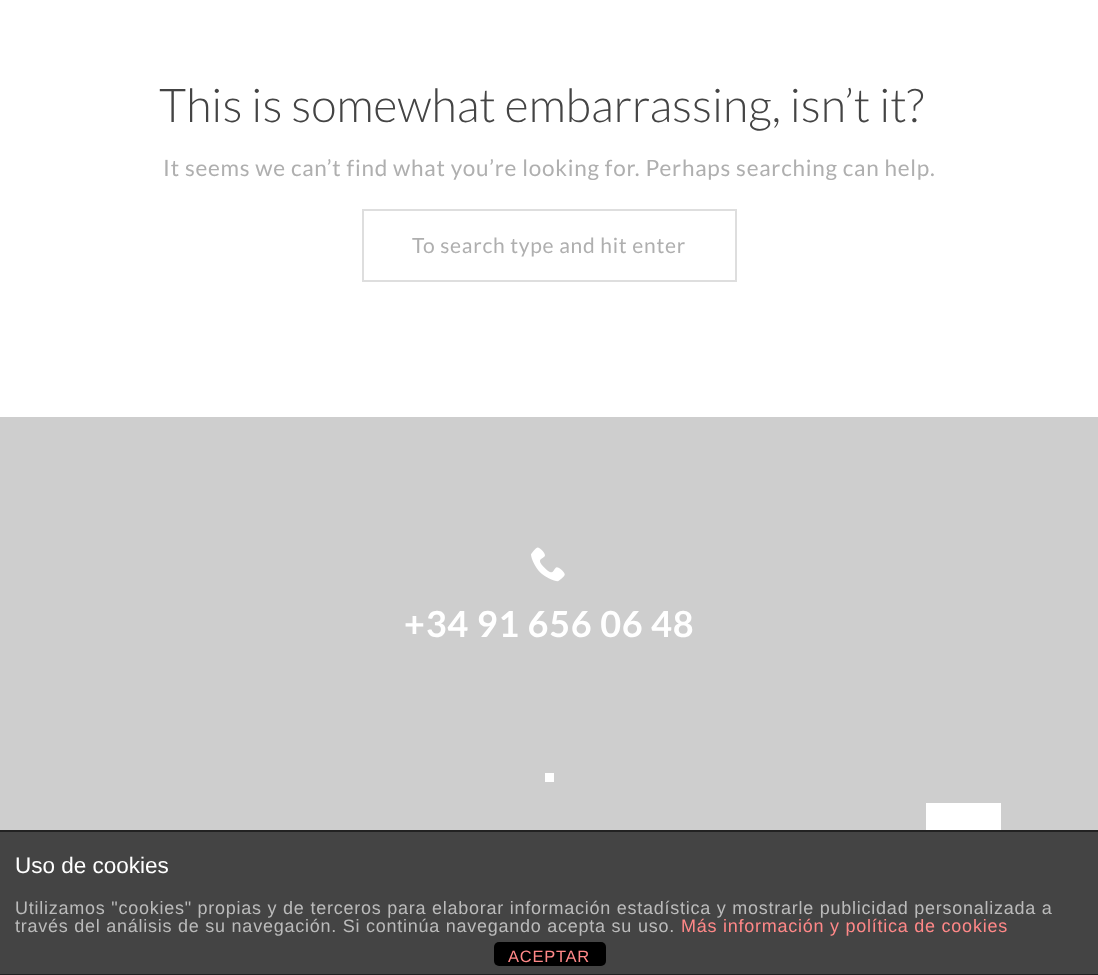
<?xml version="1.0" encoding="UTF-8"?>
<svg xmlns="http://www.w3.org/2000/svg" width="1098" height="975">
    <rect width="100%" height="100%" fill="#CECECE"/>
    <rect x="0" y="0" width="1098" height="417" fill="#FFFFFF"/>
    <text x="159" y="122" font-family="Lato" font-size="46.5" font-weight="300" fill="#444444">This is somewhat embarrassing, isn’t it?</text>
    <text x="163" y="176" font-family="Lato" font-size="22.5" letter-spacing="0.75" fill="#AFAFAF">It seems we can’t find what you’re looking for. Perhaps searching can help.</text>
    <rect x="363" y="210" width="373" height="71" fill="none" stroke="#DEDEDE" stroke-width="2"/>
    <text x="412" y="253" font-family="Lato" font-size="21" letter-spacing="0.75" fill="#AFAFAF">To search type and hit enter</text>
    <image x="531" y="547" width="34" height="35" href="img_01.png"/>
    <text x="404" y="637" font-family="Lato" font-size="36" font-weight="700" letter-spacing="0.75" fill="#FFFFFF">+34 91 656 06 48</text>
    <rect x="545" y="773" width="9" height="9" fill="#FFFFFF"/>
    <rect x="926" y="803" width="75" height="27" fill="#FFFFFF"/>
    <rect x="0" y="832" width="1098" height="142" fill="#444444"/>
    <rect x="0" y="830" width="1098" height="2" fill="#222222"/>
    <rect x="0" y="974" width="1098" height="1" fill="#222222"/>
    <text x="15" y="873" font-family="Liberation Sans" font-size="22.5" fill="#FFFFFF">Uso de cookies</text>
    <text font-family="Liberation Sans" font-size="18" letter-spacing="0.75" fill="#BBBBBB">
        <tspan x="15" y="914">Utilizamos "cookies" propias y de terceros para elaborar información estadística y mostrarle publicidad personalizada a</tspan>
        <tspan x="15" y="932">través del análisis de su navegación. Si continúa navegando acepta su uso.</tspan>
    </text>
    <text x="681" y="932" font-family="Liberation Sans" font-size="18" letter-spacing="0.75" fill="#FF8888">Más información y política de cookies</text>
    <rect x="494" y="942" width="112" height="24" rx="5" fill="#000000"/>
    <text x="508" y="962" font-family="Liberation Sans" font-size="16.5" letter-spacing="0.75" fill="#FF8888">ACEPTAR</text>
</svg>
